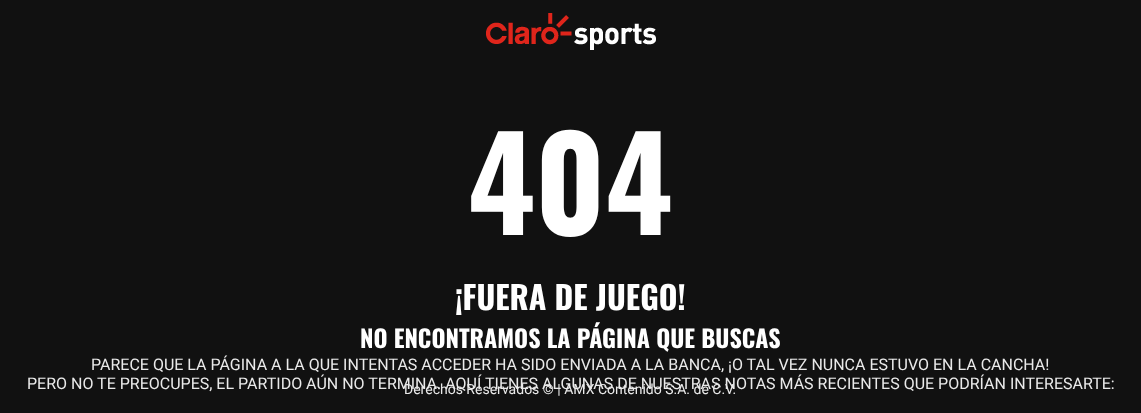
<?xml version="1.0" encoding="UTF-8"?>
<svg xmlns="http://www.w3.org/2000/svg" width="1141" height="413">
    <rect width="100%" height="100%" fill="#111111"/>
    <image x="486" y="13" width="170" height="37" href="img_01.png"/>
    <text x="468" y="235" font-family="Oswald" font-size="128" font-weight="700" fill="#FFFFFF">404</text>
    <text x="455" y="310" font-family="Oswald" font-size="32" font-weight="700" fill="#FFFFFF">¡FUERA DE JUEGO!</text>
    <text x="360" y="348" font-family="Oswald" font-size="24" font-weight="700" fill="#FFFFFF">NO ENCONTRAMOS LA PÁGINA QUE BUSCAS</text>
    <text x="91" y="370" font-family="Roboto" font-size="16" fill="#EAEAEA">PARECE QUE LA PÁGINA A LA QUE INTENTAS ACCEDER HA SIDO ENVIADA A LA BANCA, ¡O TAL VEZ NUNCA ESTUVO EN LA CANCHA!</text>
    <text x="27" y="389" font-family="Roboto" font-size="16" fill="#EAEAEA">PERO NO TE PREOCUPES, EL PARTIDO AÚN NO TERMINA. AQUÍ TIENES ALGUNAS DE NUESTRAS NOTAS MÁS RECIENTES QUE PODRÍAN INTERESARTE:</text>
    <text x="404" y="394" font-family="Roboto" font-size="14" fill="#EAEAEA">Derechos Reservados © | AMX Contenido S.A. de C.V.</text>
</svg>
